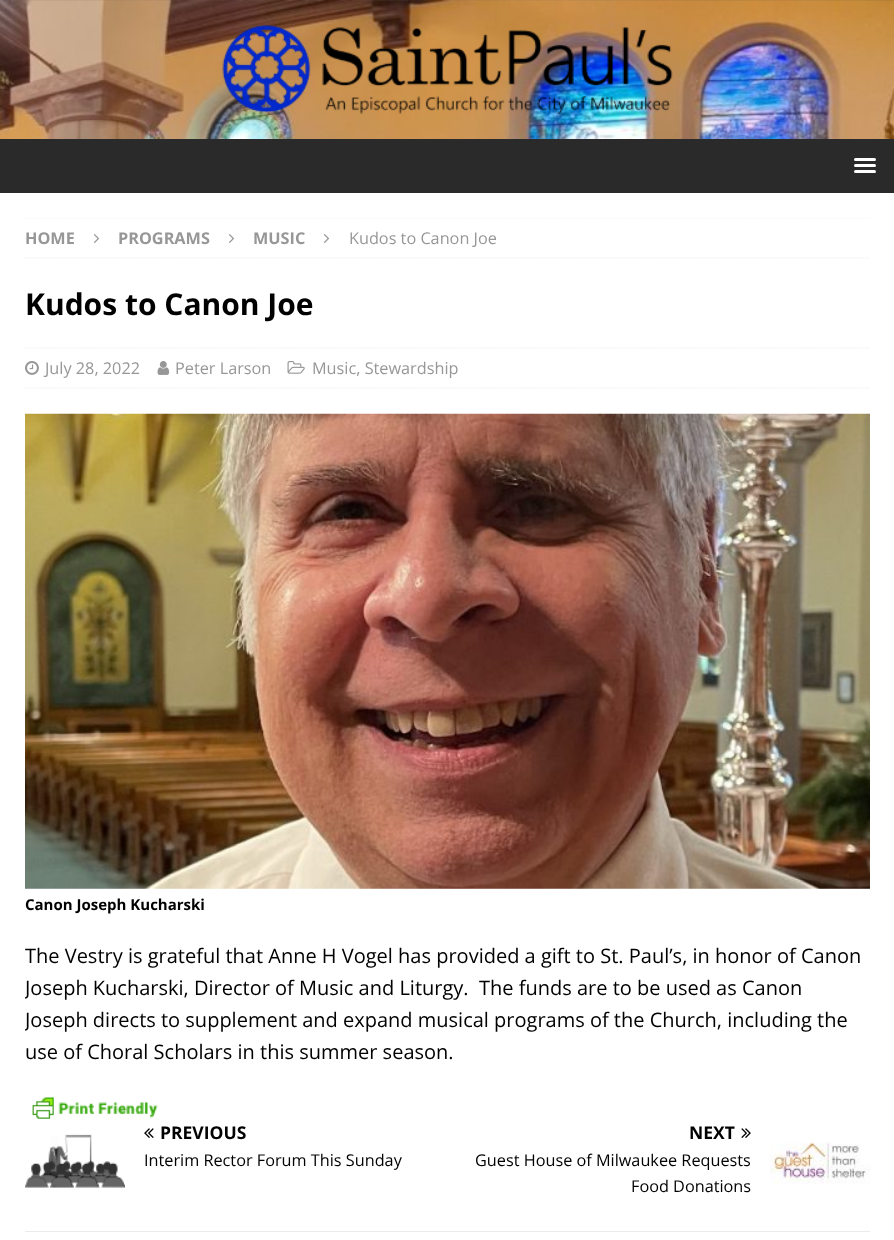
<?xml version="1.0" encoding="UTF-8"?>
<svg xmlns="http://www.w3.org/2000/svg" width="894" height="1240">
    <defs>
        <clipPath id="clip1"><rect x="25" y="218" width="845" height="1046"/></clipPath>
    </defs>
    <rect width="100%" height="100%" fill="#FFFFFF"/>
    <image x="0" y="0" width="894" height="139" href="img_01.png"/>
    <image x="222" y="25" width="451" height="89" href="img_02.png"/>
    <rect x="0" y="139" width="894" height="54" fill="#2A2A2A"/>
    <rect x="854" y="158" width="22" height="3" rx="1.5" fill="#FFFFFF"/>
    <rect x="854" y="164" width="22" height="3" rx="1.5" fill="#FFFFFF"/>
    <rect x="854" y="170" width="22" height="3" rx="1.5" fill="#FFFFFF"/>
    <g clip-path="url(#clip1)">
        <path d="M 25 218 H 870" fill="none" stroke="#EBEBEB" stroke-width="1.2" stroke-dasharray="1.25 1.25"/>
    </g>
    <path d="M 25 258 H 870" fill="none" stroke="#EBEBEB" stroke-width="1.2" stroke-dasharray="1.25 1.25"/>
    <text x="25" y="244" font-family="Open Sans" font-size="16.25" font-weight="700" fill="#979797">HOME</text>
    <image x="93" y="234" width="7" height="9" href="img_03.png"/>
    <text x="118" y="244" font-family="Open Sans" font-size="16.25" font-weight="700" fill="#979797">PROGRAMS</text>
    <image x="228" y="234" width="7" height="9" href="img_03.png"/>
    <text x="253" y="244" font-family="Open Sans" font-size="16.25" font-weight="700" fill="#979797">MUSIC</text>
    <image x="323" y="234" width="7" height="9" href="img_03.png"/>
    <text x="349" y="244" font-family="Open Sans" font-size="16.25" fill="#979797">Kudos to Canon Joe</text>
    <text x="25" y="315" font-family="Open Sans" font-size="30" font-weight="700" fill="#000000">Kudos to Canon Joe</text>
    <path d="M 25 348 H 870" fill="none" stroke="#EBEBEB" stroke-width="1.2" stroke-dasharray="1.25 1.25"/>
    <path d="M 25 388 H 870" fill="none" stroke="#EBEBEB" stroke-width="1.2" stroke-dasharray="1.25 1.25"/>
    <image x="25" y="361" width="14" height="14" href="img_04.png"/>
    <text x="45" y="374" font-family="Open Sans" font-size="16.25" fill="#979797">July 28, 2022</text>
    <image x="157" y="361" width="13" height="14" href="img_05.png"/>
    <text x="175" y="374" font-family="Open Sans" font-size="16.25" fill="#979797">Peter Larson</text>
    <image x="287" y="361" width="18" height="13" href="img_06.png"/>
    <text x="312" y="374" font-family="Open Sans" font-size="16.25" fill="#979797">Music, Stewardship</text>
    <image x="25" y="413" width="845" height="476" href="img_07.png"/>
    <text x="25" y="910" font-family="Open Sans" font-size="15" font-weight="700" fill="#000000">Canon Joseph Kucharski</text>
    <text x="25" y="963" font-family="Open Sans" font-size="20" fill="#000000">The Vestry is grateful that Anne H Vogel has provided a gift to St. Paul’s, in honor of Canon</text>
    <g clip-path="url(#clip1)">
        <text font-family="Open Sans" font-size="20" fill="#000000" xml:space="preserve"><tspan x="25" y="995">Joseph Kucharski, Director of Music and Liturgy.  The funds are to be used as Canon</tspan><tspan x="25" y="1027">Joseph directs to supplement and expand musical programs of the Church, including the</tspan></text>
    </g>
    <text x="25" y="1059" font-family="Open Sans" font-size="20" fill="#000000">use of Choral Scholars in this summer season.</text>
    <image x="32" y="1097" width="126" height="22" href="img_08.png"/>
    <rect x="25" y="1231" width="845" height="1" fill="#EBEBEB"/>
    <image x="25" y="1134" width="100" height="54" href="img_09.png"/>
    <image x="144" y="1128" width="10" height="10" href="img_10.png"/>
    <text x="160" y="1139" font-family="Open Sans" font-size="17.5" font-weight="700" fill="#000000">PREVIOUS</text>
    <text x="144" y="1166" font-family="Open Sans" font-size="16.25" fill="#000000">Interim Rector Forum This Sunday</text>
    <text x="689" y="1139" font-family="Open Sans" font-size="17.5" font-weight="700" fill="#000000">NEXT</text>
    <image x="741" y="1128" width="10" height="10" href="img_11.png"/>
    <text x="475" y="1166" font-family="Open Sans" font-size="16.25" fill="#000000">Guest House of Milwaukee Requests</text>
    <text x="631" y="1192" font-family="Open Sans" font-size="16.25" fill="#000000">Food Donations</text>
    <image x="770" y="1142" width="100" height="42" href="img_12.png"/>
</svg>
